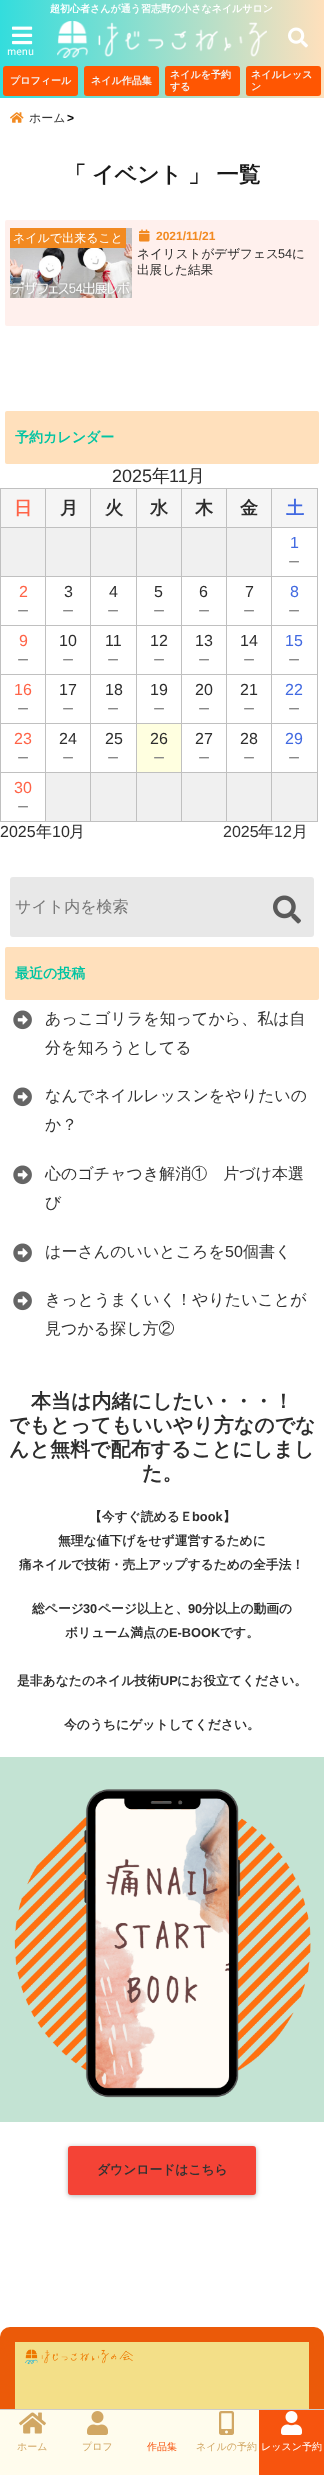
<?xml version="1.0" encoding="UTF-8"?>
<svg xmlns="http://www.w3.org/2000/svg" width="324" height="2475">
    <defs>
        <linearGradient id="g1" gradientUnits="userSpaceOnUse" x1="0" y1="49" x2="324" y2="49"><stop offset="0" stop-color="#33DDDD"/><stop offset="1" stop-color="#FFE0BC"/></linearGradient>
        <filter id="blur1" x="-50%" y="-200%" width="200%" height="500%"><feGaussianBlur stdDeviation="2.5"/></filter>
    </defs>
    <rect width="100%" height="100%" fill="#FFFFFF"/>
    <rect x="0" y="0" width="324" height="98" fill="url(#g1)"/>
    <text x="50" y="12" font-family="WenQuanYi Zen Hei" font-size="10" font-weight="700" fill="#FFFFFF">超初心者さんが通う習志野の小さなネイルサロン</text>
    <image x="57" y="21" width="210" height="37" href="img_01.png"/>
    <image x="288" y="27" width="20" height="21" href="img_02.png"/>
    <image x="12" y="26" width="21" height="19" href="img_03.png"/>
    <text x="7" y="55" font-family="Noto Sans JP" font-size="10" fill="#FFFFFF">menu</text>
    <rect x="3" y="66" width="75" height="30" rx="3" fill="#FF5602"/>
    <text x="10" y="84" font-family="WenQuanYi Zen Hei" font-size="10" font-weight="700" fill="#F4F4F4">プロフィール</text>
    <rect x="84" y="66" width="75" height="30" rx="3" fill="#FF5602"/>
    <text x="91" y="84" font-family="WenQuanYi Zen Hei" font-size="10" font-weight="700" fill="#F4F4F4">ネイル作品集</text>
    <rect x="165" y="66" width="75" height="30" rx="3" fill="#FF5602"/>
    <text font-family="WenQuanYi Zen Hei" font-size="10" font-weight="700" fill="#F4F4F4">
        <tspan x="170" y="78">ネイルを予約</tspan>
        <tspan x="170" y="90">する</tspan>
    </text>
    <rect x="246" y="66" width="75" height="30" rx="3" fill="#FF5602"/>
    <text font-family="WenQuanYi Zen Hei" font-size="10" font-weight="700" fill="#F4F4F4">
        <tspan x="251" y="78">ネイルレッス</tspan>
        <tspan x="251" y="90">ン</tspan>
    </text>
    <image x="10" y="112" width="14" height="11" href="img_04.png"/>
    <text x="29" y="122" font-family="WenQuanYi Zen Hei" font-size="12" font-weight="500" fill="#333333">ホーム</text>
    <text x="67" y="122" font-family="Liberation Sans" font-size="12" font-weight="700" fill="#010101">&gt;</text>
    <text x="64" y="182" font-family="WenQuanYi Zen Hei" font-size="22" font-weight="700" fill="#1A1A1A">「</text>
    <text x="92" y="182" font-family="WenQuanYi Zen Hei" font-size="22" font-weight="700" fill="#1A1A1A">イベント</text>
    <text x="188" y="182" font-family="WenQuanYi Zen Hei" font-size="22" font-weight="700" fill="#1A1A1A">」 一覧</text>
    <rect x="5" y="220" width="314" height="106" rx="2" fill="#FFF0ED"/>
    <image x="10" y="228" width="122" height="70" href="img_05.png"/>
    <rect x="10" y="228" width="116" height="20" fill="#F28A21"/>
    <text x="13" y="242" font-family="WenQuanYi Zen Hei" font-size="12" font-weight="500" fill="#FFFFFF">ネイルで出来ること</text>
    <image x="139" y="229" width="11" height="13" href="img_06.png"/>
    <text x="156" y="240" font-family="Liberation Sans" font-size="12" font-weight="700" fill="#F28A21">2021/11/21</text>
    <text x="137" y="258" font-family="WenQuanYi Zen Hei" font-size="12.6" font-weight="500" fill="#2D2D2D">ネイリストがデザフェス</text>
    <text x="278" y="258" font-family="Liberation Sans" font-size="12.6" fill="#2D2D2D">54</text>
    <text x="292" y="258" font-family="WenQuanYi Zen Hei" font-size="12.6" font-weight="500" fill="#2D2D2D">に</text>
    <text x="137" y="274" font-family="WenQuanYi Zen Hei" font-size="12.6" font-weight="500" fill="#2D2D2D">出展した結果</text>
    <rect x="5" y="411" width="314" height="53" rx="2" fill="#FFE0BC"/>
    <text x="15" y="442" font-family="WenQuanYi Zen Hei" font-size="14" font-weight="700" fill="#00C4A3">予約カレンダー</text>
    <text x="112" y="482" font-family="Liberation Sans" font-size="18" fill="#2D2D2D">2025</text>
    <text x="152" y="482" font-family="WenQuanYi Zen Hei" font-size="18" font-weight="500" fill="#2D2D2D">年</text>
    <text x="169" y="482" font-family="Liberation Sans" font-size="18" fill="#2D2D2D">11</text>
    <text x="187" y="482" font-family="WenQuanYi Zen Hei" font-size="18" font-weight="500" fill="#2D2D2D">月</text>
    <rect x="1" y="489" width="44" height="38" fill="#F5F5F5"/>
    <rect x="271" y="488" width="47" height="1" fill="#C0C0C0"/>
    <rect x="271" y="527" width="47" height="1" fill="#C0C0C0"/>
    <rect x="271" y="576" width="47" height="1" fill="#C0C0C0"/>
    <rect x="271" y="625" width="47" height="1" fill="#C0C0C0"/>
    <rect x="271" y="674" width="47" height="1" fill="#C0C0C0"/>
    <rect x="271" y="723" width="47" height="1" fill="#C0C0C0"/>
    <rect x="271" y="772" width="47" height="1" fill="#C0C0C0"/>
    <rect x="317" y="772" width="1" height="50" fill="#C0C0C0"/>
    <rect x="271" y="821" width="47" height="1" fill="#C0C0C0"/>
    <rect x="271" y="772" width="1" height="50" fill="#C0C0C0"/>
    <rect x="226" y="772" width="46" height="1" fill="#C0C0C0"/>
    <rect x="271" y="723" width="1" height="50" fill="#C0C0C0"/>
    <rect x="226" y="723" width="46" height="1" fill="#C0C0C0"/>
    <rect x="271" y="674" width="1" height="50" fill="#C0C0C0"/>
    <rect x="226" y="674" width="46" height="1" fill="#C0C0C0"/>
    <rect x="271" y="625" width="1" height="50" fill="#C0C0C0"/>
    <rect x="226" y="625" width="46" height="1" fill="#C0C0C0"/>
    <rect x="271" y="576" width="1" height="50" fill="#C0C0C0"/>
    <rect x="226" y="576" width="46" height="1" fill="#C0C0C0"/>
    <rect x="271" y="527" width="1" height="50" fill="#C0C0C0"/>
    <rect x="226" y="527" width="46" height="1" fill="#C0C0C0"/>
    <rect x="271" y="488" width="1" height="40" fill="#C0C0C0"/>
    <rect x="226" y="488" width="46" height="1" fill="#C0C0C0"/>
    <rect x="226" y="821" width="46" height="1" fill="#C0C0C0"/>
    <rect x="226" y="772" width="1" height="50" fill="#C0C0C0"/>
    <rect x="181" y="772" width="46" height="1" fill="#C0C0C0"/>
    <rect x="226" y="723" width="1" height="50" fill="#C0C0C0"/>
    <rect x="181" y="723" width="46" height="1" fill="#C0C0C0"/>
    <rect x="226" y="674" width="1" height="50" fill="#C0C0C0"/>
    <rect x="181" y="674" width="46" height="1" fill="#C0C0C0"/>
    <rect x="226" y="625" width="1" height="50" fill="#C0C0C0"/>
    <rect x="181" y="625" width="46" height="1" fill="#C0C0C0"/>
    <rect x="226" y="576" width="1" height="50" fill="#C0C0C0"/>
    <rect x="181" y="576" width="46" height="1" fill="#C0C0C0"/>
    <rect x="226" y="527" width="1" height="50" fill="#C0C0C0"/>
    <rect x="181" y="527" width="46" height="1" fill="#C0C0C0"/>
    <rect x="226" y="488" width="1" height="40" fill="#C0C0C0"/>
    <rect x="181" y="488" width="46" height="1" fill="#C0C0C0"/>
    <rect x="181" y="821" width="46" height="1" fill="#C0C0C0"/>
    <rect x="181" y="772" width="1" height="50" fill="#C0C0C0"/>
    <rect x="136" y="772" width="46" height="1" fill="#C0C0C0"/>
    <rect x="181" y="723" width="1" height="50" fill="#C0C0C0"/>
    <rect x="136" y="723" width="46" height="1" fill="#C0C0C0"/>
    <rect x="181" y="674" width="1" height="50" fill="#C0C0C0"/>
    <rect x="136" y="674" width="46" height="1" fill="#C0C0C0"/>
    <rect x="181" y="625" width="1" height="50" fill="#C0C0C0"/>
    <rect x="136" y="625" width="46" height="1" fill="#C0C0C0"/>
    <rect x="181" y="576" width="1" height="50" fill="#C0C0C0"/>
    <rect x="136" y="576" width="46" height="1" fill="#C0C0C0"/>
    <rect x="181" y="527" width="1" height="50" fill="#C0C0C0"/>
    <rect x="136" y="527" width="46" height="1" fill="#C0C0C0"/>
    <rect x="181" y="488" width="1" height="40" fill="#C0C0C0"/>
    <rect x="136" y="488" width="46" height="1" fill="#C0C0C0"/>
    <rect x="136" y="821" width="46" height="1" fill="#C0C0C0"/>
    <rect x="136" y="772" width="1" height="50" fill="#C0C0C0"/>
    <rect x="90" y="772" width="47" height="1" fill="#C0C0C0"/>
    <rect x="136" y="723" width="1" height="50" fill="#C0C0C0"/>
    <rect x="90" y="723" width="47" height="1" fill="#C0C0C0"/>
    <rect x="136" y="674" width="1" height="50" fill="#C0C0C0"/>
    <rect x="90" y="674" width="47" height="1" fill="#C0C0C0"/>
    <rect x="136" y="625" width="1" height="50" fill="#C0C0C0"/>
    <rect x="90" y="625" width="47" height="1" fill="#C0C0C0"/>
    <rect x="136" y="576" width="1" height="50" fill="#C0C0C0"/>
    <rect x="90" y="576" width="47" height="1" fill="#C0C0C0"/>
    <rect x="136" y="527" width="1" height="50" fill="#C0C0C0"/>
    <rect x="90" y="527" width="47" height="1" fill="#C0C0C0"/>
    <rect x="136" y="488" width="1" height="40" fill="#C0C0C0"/>
    <rect x="90" y="488" width="47" height="1" fill="#C0C0C0"/>
    <rect x="90" y="821" width="47" height="1" fill="#C0C0C0"/>
    <rect x="90" y="772" width="1" height="50" fill="#C0C0C0"/>
    <rect x="45" y="772" width="46" height="1" fill="#C0C0C0"/>
    <rect x="90" y="723" width="1" height="50" fill="#C0C0C0"/>
    <rect x="45" y="723" width="46" height="1" fill="#C0C0C0"/>
    <rect x="90" y="674" width="1" height="50" fill="#C0C0C0"/>
    <rect x="45" y="674" width="46" height="1" fill="#C0C0C0"/>
    <rect x="90" y="625" width="1" height="50" fill="#C0C0C0"/>
    <rect x="45" y="625" width="46" height="1" fill="#C0C0C0"/>
    <rect x="90" y="576" width="1" height="50" fill="#C0C0C0"/>
    <rect x="45" y="576" width="46" height="1" fill="#C0C0C0"/>
    <rect x="90" y="527" width="1" height="50" fill="#C0C0C0"/>
    <rect x="45" y="527" width="46" height="1" fill="#C0C0C0"/>
    <rect x="90" y="488" width="1" height="40" fill="#C0C0C0"/>
    <rect x="45" y="488" width="46" height="1" fill="#C0C0C0"/>
    <rect x="45" y="821" width="46" height="1" fill="#C0C0C0"/>
    <rect x="45" y="772" width="1" height="50" fill="#C0C0C0"/>
    <rect x="0" y="772" width="46" height="1" fill="#C0C0C0"/>
    <rect x="45" y="723" width="1" height="50" fill="#C0C0C0"/>
    <rect x="0" y="723" width="46" height="1" fill="#C0C0C0"/>
    <rect x="45" y="674" width="1" height="50" fill="#C0C0C0"/>
    <rect x="0" y="674" width="46" height="1" fill="#C0C0C0"/>
    <rect x="45" y="625" width="1" height="50" fill="#C0C0C0"/>
    <rect x="0" y="625" width="46" height="1" fill="#C0C0C0"/>
    <rect x="45" y="576" width="1" height="50" fill="#C0C0C0"/>
    <rect x="0" y="576" width="46" height="1" fill="#C0C0C0"/>
    <rect x="45" y="527" width="1" height="50" fill="#C0C0C0"/>
    <rect x="0" y="527" width="46" height="1" fill="#C0C0C0"/>
    <rect x="45" y="488" width="1" height="40" fill="#C0C0C0"/>
    <rect x="0" y="488" width="46" height="1" fill="#C0C0C0"/>
    <rect x="0" y="821" width="46" height="1" fill="#C0C0C0"/>
    <rect x="0" y="772" width="1" height="50" fill="#C0C0C0"/>
    <rect x="0" y="723" width="1" height="50" fill="#C0C0C0"/>
    <rect x="0" y="674" width="1" height="50" fill="#C0C0C0"/>
    <rect x="0" y="625" width="1" height="50" fill="#C0C0C0"/>
    <rect x="0" y="576" width="1" height="50" fill="#C0C0C0"/>
    <rect x="0" y="527" width="1" height="50" fill="#C0C0C0"/>
    <rect x="0" y="488" width="1" height="40" fill="#C0C0C0"/>
    <text x="14" y="514" font-family="WenQuanYi Zen Hei" font-size="18" font-weight="700" fill="#FF6347">日</text>
    <rect x="46" y="489" width="44" height="38" fill="#F5F5F5"/>
    <text x="60" y="514" font-family="WenQuanYi Zen Hei" font-size="18" font-weight="700" fill="#2D2D2D">月</text>
    <rect x="91" y="489" width="45" height="38" fill="#F5F5F5"/>
    <text x="105" y="514" font-family="WenQuanYi Zen Hei" font-size="18" font-weight="700" fill="#2D2D2D">火</text>
    <rect x="137" y="489" width="44" height="38" fill="#F5F5F5"/>
    <text x="150" y="514" font-family="WenQuanYi Zen Hei" font-size="18" font-weight="700" fill="#2D2D2D">水</text>
    <rect x="182" y="489" width="44" height="38" fill="#F5F5F5"/>
    <text x="195" y="514" font-family="WenQuanYi Zen Hei" font-size="18" font-weight="700" fill="#2D2D2D">木</text>
    <rect x="227" y="489" width="44" height="38" fill="#F5F5F5"/>
    <text x="240" y="514" font-family="WenQuanYi Zen Hei" font-size="18" font-weight="700" fill="#2D2D2D">金</text>
    <rect x="272" y="489" width="45" height="38" fill="#F5F5F5"/>
    <rect x="317" y="723" width="1" height="50" fill="#C0C0C0"/>
    <rect x="317" y="674" width="1" height="50" fill="#C0C0C0"/>
    <rect x="317" y="625" width="1" height="50" fill="#C0C0C0"/>
    <rect x="317" y="576" width="1" height="50" fill="#C0C0C0"/>
    <rect x="317" y="527" width="1" height="50" fill="#C0C0C0"/>
    <rect x="317" y="488" width="1" height="40" fill="#C0C0C0"/>
    <text x="286" y="514" font-family="WenQuanYi Zen Hei" font-size="18" font-weight="700" fill="#4169E1">土</text>
    <rect x="1" y="528" width="44" height="48" fill="#F0F0F0"/>
    <rect x="46" y="528" width="44" height="48" fill="#F0F0F0"/>
    <rect x="91" y="528" width="45" height="48" fill="#F0F0F0"/>
    <rect x="137" y="528" width="44" height="48" fill="#F0F0F0"/>
    <rect x="182" y="528" width="44" height="48" fill="#F0F0F0"/>
    <rect x="227" y="528" width="44" height="48" fill="#F0F0F0"/>
    <text x="290" y="548" font-family="Liberation Sans" font-size="16" fill="#4169E1">1</text>
    <text x="283" y="568" font-family="WenQuanYi Zen Hei" font-size="22" font-weight="500" fill="#888888">－</text>
    <text x="19" y="597" font-family="Liberation Sans" font-size="16" fill="#FF6347">2</text>
    <text x="12" y="617" font-family="WenQuanYi Zen Hei" font-size="22" font-weight="500" fill="#888888">－</text>
    <text x="64" y="597" font-family="Liberation Sans" font-size="16" fill="#2D2D2D">3</text>
    <text x="57" y="617" font-family="WenQuanYi Zen Hei" font-size="22" font-weight="500" fill="#888888">－</text>
    <text x="109" y="597" font-family="Liberation Sans" font-size="16" fill="#2D2D2D">4</text>
    <text x="102" y="617" font-family="WenQuanYi Zen Hei" font-size="22" font-weight="500" fill="#888888">－</text>
    <text x="154" y="597" font-family="Liberation Sans" font-size="16" fill="#2D2D2D">5</text>
    <text x="148" y="617" font-family="WenQuanYi Zen Hei" font-size="22" font-weight="500" fill="#888888">－</text>
    <text x="199" y="597" font-family="Liberation Sans" font-size="16" fill="#2D2D2D">6</text>
    <text x="193" y="617" font-family="WenQuanYi Zen Hei" font-size="22" font-weight="500" fill="#888888">－</text>
    <text x="245" y="597" font-family="Liberation Sans" font-size="16" fill="#2D2D2D">7</text>
    <text x="238" y="617" font-family="WenQuanYi Zen Hei" font-size="22" font-weight="500" fill="#888888">－</text>
    <text x="290" y="597" font-family="Liberation Sans" font-size="16" fill="#4169E1">8</text>
    <text x="283" y="617" font-family="WenQuanYi Zen Hei" font-size="22" font-weight="500" fill="#888888">－</text>
    <text x="19" y="646" font-family="Liberation Sans" font-size="16" fill="#FF6347">9</text>
    <text x="12" y="666" font-family="WenQuanYi Zen Hei" font-size="22" font-weight="500" fill="#888888">－</text>
    <text x="59" y="646" font-family="Liberation Sans" font-size="16" fill="#2D2D2D">10</text>
    <text x="57" y="666" font-family="WenQuanYi Zen Hei" font-size="22" font-weight="500" fill="#888888">－</text>
    <text x="105" y="646" font-family="Liberation Sans" font-size="16" fill="#2D2D2D">11</text>
    <text x="102" y="666" font-family="WenQuanYi Zen Hei" font-size="22" font-weight="500" fill="#888888">－</text>
    <text x="150" y="646" font-family="Liberation Sans" font-size="16" fill="#2D2D2D">12</text>
    <text x="148" y="666" font-family="WenQuanYi Zen Hei" font-size="22" font-weight="500" fill="#888888">－</text>
    <text x="195" y="646" font-family="Liberation Sans" font-size="16" fill="#2D2D2D">13</text>
    <text x="193" y="666" font-family="WenQuanYi Zen Hei" font-size="22" font-weight="500" fill="#888888">－</text>
    <text x="240" y="646" font-family="Liberation Sans" font-size="16" fill="#2D2D2D">14</text>
    <text x="238" y="666" font-family="WenQuanYi Zen Hei" font-size="22" font-weight="500" fill="#888888">－</text>
    <text x="285" y="646" font-family="Liberation Sans" font-size="16" fill="#4169E1">15</text>
    <text x="283" y="666" font-family="WenQuanYi Zen Hei" font-size="22" font-weight="500" fill="#888888">－</text>
    <text x="14" y="695" font-family="Liberation Sans" font-size="16" fill="#FF6347">16</text>
    <text x="12" y="715" font-family="WenQuanYi Zen Hei" font-size="22" font-weight="500" fill="#888888">－</text>
    <text x="59" y="695" font-family="Liberation Sans" font-size="16" fill="#2D2D2D">17</text>
    <text x="57" y="715" font-family="WenQuanYi Zen Hei" font-size="22" font-weight="500" fill="#888888">－</text>
    <text x="105" y="695" font-family="Liberation Sans" font-size="16" fill="#2D2D2D">18</text>
    <text x="102" y="715" font-family="WenQuanYi Zen Hei" font-size="22" font-weight="500" fill="#888888">－</text>
    <text x="150" y="695" font-family="Liberation Sans" font-size="16" fill="#2D2D2D">19</text>
    <text x="148" y="715" font-family="WenQuanYi Zen Hei" font-size="22" font-weight="500" fill="#888888">－</text>
    <text x="195" y="695" font-family="Liberation Sans" font-size="16" fill="#2D2D2D">20</text>
    <text x="193" y="715" font-family="WenQuanYi Zen Hei" font-size="22" font-weight="500" fill="#888888">－</text>
    <text x="240" y="695" font-family="Liberation Sans" font-size="16" fill="#2D2D2D">21</text>
    <text x="238" y="715" font-family="WenQuanYi Zen Hei" font-size="22" font-weight="500" fill="#888888">－</text>
    <text x="285" y="695" font-family="Liberation Sans" font-size="16" fill="#4169E1">22</text>
    <text x="283" y="715" font-family="WenQuanYi Zen Hei" font-size="22" font-weight="500" fill="#888888">－</text>
    <text x="14" y="744" font-family="Liberation Sans" font-size="16" fill="#FF6347">23</text>
    <text x="12" y="764" font-family="WenQuanYi Zen Hei" font-size="22" font-weight="500" fill="#888888">－</text>
    <text x="59" y="744" font-family="Liberation Sans" font-size="16" fill="#2D2D2D">24</text>
    <text x="57" y="764" font-family="WenQuanYi Zen Hei" font-size="22" font-weight="500" fill="#888888">－</text>
    <text x="105" y="744" font-family="Liberation Sans" font-size="16" fill="#2D2D2D">25</text>
    <text x="102" y="764" font-family="WenQuanYi Zen Hei" font-size="22" font-weight="500" fill="#888888">－</text>
    <rect x="137" y="724" width="44" height="48" fill="#FFFFE0"/>
    <text x="150" y="744" font-family="Liberation Sans" font-size="16" fill="#2D2D2D">26</text>
    <text x="148" y="764" font-family="WenQuanYi Zen Hei" font-size="22" font-weight="500" fill="#888888">－</text>
    <text x="195" y="744" font-family="Liberation Sans" font-size="16" fill="#2D2D2D">27</text>
    <text x="193" y="764" font-family="WenQuanYi Zen Hei" font-size="22" font-weight="500" fill="#888888">－</text>
    <text x="240" y="744" font-family="Liberation Sans" font-size="16" fill="#2D2D2D">28</text>
    <text x="238" y="764" font-family="WenQuanYi Zen Hei" font-size="22" font-weight="500" fill="#888888">－</text>
    <text x="285" y="744" font-family="Liberation Sans" font-size="16" fill="#4169E1">29</text>
    <text x="283" y="764" font-family="WenQuanYi Zen Hei" font-size="22" font-weight="500" fill="#888888">－</text>
    <text x="14" y="793" font-family="Liberation Sans" font-size="16" fill="#FF6347">30</text>
    <text x="12" y="813" font-family="WenQuanYi Zen Hei" font-size="22" font-weight="500" fill="#888888">－</text>
    <rect x="46" y="773" width="44" height="48" fill="#F0F0F0"/>
    <rect x="91" y="773" width="45" height="48" fill="#F0F0F0"/>
    <rect x="137" y="773" width="44" height="48" fill="#F0F0F0"/>
    <rect x="182" y="773" width="44" height="48" fill="#F0F0F0"/>
    <rect x="227" y="773" width="44" height="48" fill="#F0F0F0"/>
    <rect x="272" y="773" width="45" height="48" fill="#F0F0F0"/>
    <text x="0" y="837" font-family="Liberation Sans" font-size="16" fill="#2D2D2D">2025</text>
    <text x="36" y="837" font-family="WenQuanYi Zen Hei" font-size="16" font-weight="500" fill="#2D2D2D">年</text>
    <text x="52" y="837" font-family="Liberation Sans" font-size="16" fill="#2D2D2D">10</text>
    <text x="69" y="837" font-family="WenQuanYi Zen Hei" font-size="16" font-weight="500" fill="#2D2D2D">月</text>
    <text x="223" y="837" font-family="Liberation Sans" font-size="16" fill="#333333">2025</text>
    <text x="258" y="837" font-family="WenQuanYi Zen Hei" font-size="16" font-weight="500" fill="#333333">年</text>
    <text x="274" y="837" font-family="Liberation Sans" font-size="16" fill="#333333">12</text>
    <text x="292" y="837" font-family="WenQuanYi Zen Hei" font-size="16" font-weight="500" fill="#333333">月</text>
    <rect x="10" y="877" width="304" height="60" rx="3" fill="#E8E8E8"/>
    <text x="15" y="912" font-family="WenQuanYi Zen Hei" font-size="16" font-weight="500" fill="#757575">サイト内を検索</text>
    <image x="273" y="895" width="28" height="29" href="img_07.png"/>
    <rect x="5" y="947" width="314" height="53" rx="2" fill="#FFE0BC"/>
    <text x="15" y="978" font-family="WenQuanYi Zen Hei" font-size="14" font-weight="700" fill="#00C4A3">最近の投稿</text>
    <image x="13" y="1010" width="19" height="20" href="img_08.png"/>
    <text font-family="WenQuanYi Zen Hei" font-size="16" font-weight="500" fill="#333333">
        <tspan x="45" y="1024">あっこゴリラを知ってから、私は自</tspan>
        <tspan x="45" y="1053">分を知ろうとしてる</tspan>
    </text>
    <image x="13" y="1087" width="19" height="20" href="img_08.png"/>
    <text font-family="WenQuanYi Zen Hei" font-size="16" font-weight="500" fill="#333333">
        <tspan x="45" y="1101">なんでネイルレッスンをやりたいの</tspan>
        <tspan x="45" y="1130">か？</tspan>
    </text>
    <image x="13" y="1165" width="19" height="20" href="img_08.png"/>
    <text font-family="WenQuanYi Zen Hei" font-size="16" font-weight="500" fill="#333333">
        <tspan x="45" y="1179">心のゴチャつき解消①　片づけ本選</tspan>
        <tspan x="45" y="1208">び</tspan>
    </text>
    <image x="13" y="1243" width="19" height="20" href="img_08.png"/>
    <text x="45" y="1257" font-family="WenQuanYi Zen Hei" font-size="16" font-weight="500" fill="#333333">はーさんのいいところを</text>
    <text x="225" y="1257" font-family="Liberation Sans" font-size="16" fill="#333333">50</text>
    <text x="243" y="1257" font-family="WenQuanYi Zen Hei" font-size="16" font-weight="500" fill="#333333">個書く</text>
    <image x="13" y="1291" width="19" height="20" href="img_08.png"/>
    <text font-family="WenQuanYi Zen Hei" font-size="16" font-weight="500" fill="#333333">
        <tspan x="45" y="1305">きっとうまくいく！やりたいことが</tspan>
        <tspan x="45" y="1334">見つかる探し方②</tspan>
    </text>
    <text x="31" y="1408" font-family="WenQuanYi Zen Hei" font-size="20" font-weight="700" fill="#2D2D2D">本当は内緒にしたい・・・！</text>
    <text font-family="WenQuanYi Zen Hei" font-size="20" font-weight="700" fill="#2D2D2D">
        <tspan x="9" y="1432">でもとってもいいやり方なのでな</tspan>
        <tspan x="9" y="1456">んと無料で配布することにしまし</tspan>
    </text>
    <text x="142" y="1480" font-family="WenQuanYi Zen Hei" font-size="20" font-weight="700" fill="#2D2D2D">た。</text>
    <text x="89" y="1521" font-family="WenQuanYi Zen Hei" font-size="12.8" font-weight="700" fill="#2D2D2D">【今すぐ読めるＥ</text>
    <text x="192" y="1521" font-family="Liberation Sans" font-size="12.8" font-weight="700" fill="#2D2D2D">book</text>
    <text x="223" y="1521" font-family="WenQuanYi Zen Hei" font-size="12.8" font-weight="700" fill="#2D2D2D">】</text>
    <text x="58" y="1545" font-family="WenQuanYi Zen Hei" font-size="12.8" font-weight="700" fill="#2D2D2D">無理な値下げをせず運営するために</text>
    <text x="19" y="1569" font-family="WenQuanYi Zen Hei" font-size="12.8" font-weight="700" fill="#2D2D2D">痛ネイルで技術・売上アップするための全手法！</text>
    <text x="32" y="1613" font-family="WenQuanYi Zen Hei" font-size="12.8" font-weight="700" fill="#2D2D2D">総ページ</text>
    <text x="83" y="1613" font-family="Liberation Sans" font-size="12.8" font-weight="700" fill="#2D2D2D">30</text>
    <text x="98" y="1613" font-family="WenQuanYi Zen Hei" font-size="12.8" font-weight="700" fill="#2D2D2D">ページ以上と、</text>
    <text x="188" y="1613" font-family="Liberation Sans" font-size="12.8" font-weight="700" fill="#2D2D2D">90</text>
    <text x="202" y="1613" font-family="WenQuanYi Zen Hei" font-size="12.8" font-weight="700" fill="#2D2D2D">分以上の動画の</text>
    <text x="65" y="1637" font-family="WenQuanYi Zen Hei" font-size="12.8" font-weight="700" fill="#2D2D2D">ボリューム満点の</text>
    <text x="169" y="1637" font-family="Liberation Sans" font-size="12.8" font-weight="700" fill="#2D2D2D">E-BOOK</text>
    <text x="220" y="1637" font-family="WenQuanYi Zen Hei" font-size="12.8" font-weight="700" fill="#2D2D2D">です。</text>
    <text x="17" y="1685" font-family="WenQuanYi Zen Hei" font-size="12.8" font-weight="700" fill="#2D2D2D">是非あなたのネイル技術</text>
    <text x="160" y="1685" font-family="Liberation Sans" font-size="12.8" font-weight="700" fill="#2D2D2D">UP</text>
    <text x="177" y="1685" font-family="WenQuanYi Zen Hei" font-size="12.8" font-weight="700" fill="#2D2D2D">にお役立てください。</text>
    <text x="64" y="1729" font-family="WenQuanYi Zen Hei" font-size="12.8" font-weight="700" fill="#2D2D2D">今のうちにゲットしてください。</text>
    <image x="0" y="1757" width="324" height="365" href="img_09.png"/>
    <rect x="68" y="2147" width="188" height="49" rx="3" fill="#000000" fill-opacity="0.3" filter="url(#blur1)"/>
    <rect x="69" y="2147" width="186" height="47" rx="2" fill="#F44336" stroke="#F44336" stroke-width="2"/>
    <text x="97" y="2174" font-family="WenQuanYi Zen Hei" font-size="12.8" font-weight="700" fill="#333333">ダウンロードはこちら</text>
    <rect x="0" y="2327" width="324" height="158" rx="10" fill="#EB5A09"/>
    <image x="15" y="2342" width="294" height="67" href="img_10.png"/>
    <rect x="0" y="2409" width="324" height="1" fill="#CCCCCC"/>
    <rect x="0" y="2410" width="259" height="65" fill="#FFFCED"/>
    <image x="19" y="2412" width="27" height="22" href="img_11.png"/>
    <text x="17" y="2450" font-family="WenQuanYi Zen Hei" font-size="10" font-weight="500" fill="#D1A764">ホーム</text>
    <image x="87" y="2411" width="21" height="24" href="img_12.png"/>
    <text x="82" y="2450" font-family="WenQuanYi Zen Hei" font-size="10" font-weight="500" fill="#D1A764">プロフ</text>
    <text x="147" y="2450" font-family="WenQuanYi Zen Hei" font-size="10" font-weight="500" fill="#F7540E">作品集</text>
    <image x="219" y="2411" width="15" height="24" href="img_13.png"/>
    <text x="196" y="2450" font-family="WenQuanYi Zen Hei" font-size="10" font-weight="500" fill="#D1A764">ネイルの予約</text>
    <rect x="259" y="2410" width="65" height="65" fill="#F7540E"/>
    <image x="281" y="2411" width="21" height="24" href="img_14.png"/>
    <text x="261" y="2450" font-family="WenQuanYi Zen Hei" font-size="10" font-weight="500" fill="#FFFFFF">レッスン予約</text>
</svg>
